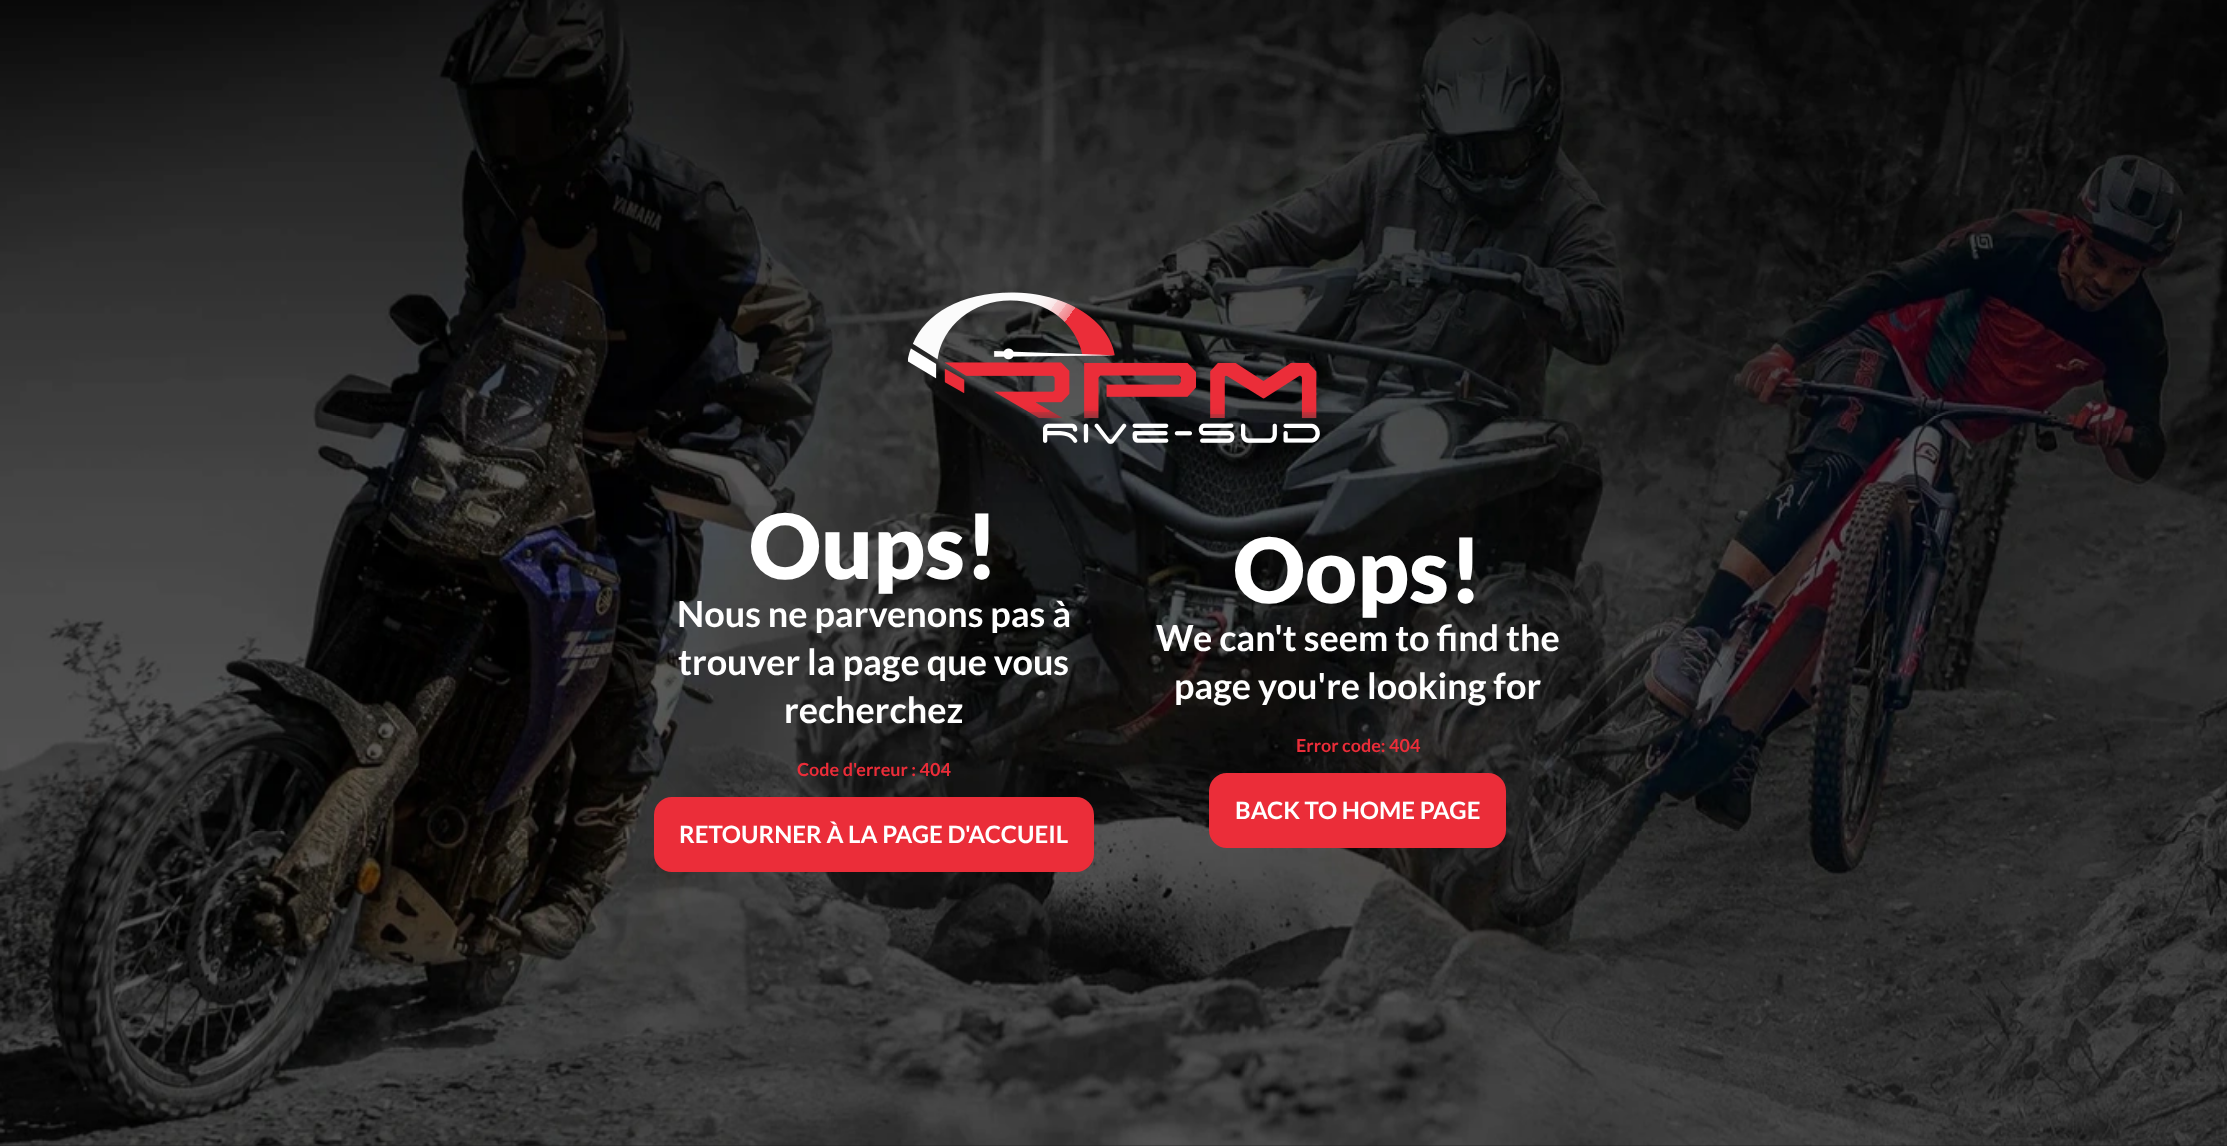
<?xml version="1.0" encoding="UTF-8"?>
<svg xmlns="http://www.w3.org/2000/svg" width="2227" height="1146">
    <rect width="100%" height="100%" fill="#1D1D1D"/>
    <image x="0" y="0" width="2227" height="1146" href="img_01.png"/>
    <image x="908" y="292" width="412" height="152" href="img_02.png"/>
    <text x="749" y="579" font-family="Lato" font-size="90" font-weight="900" fill="#FFFFFF">Oups!</text>
    <text x="677" y="627" font-family="Lato" font-size="36" font-weight="700" fill="#FFFFFF">Nous ne parvenons pas à</text>
    <text x="678" y="675" font-family="Lato" font-size="36" font-weight="700" fill="#FFFFFF">trouver la page que vous</text>
    <text x="784" y="723" font-family="Lato" font-size="36" font-weight="700" fill="#FFFFFF">recherchez</text>
    <text x="797" y="776" font-family="Lato" font-size="18" font-weight="700" fill="#EB2D39">Code d'erreur : 404</text>
    <rect x="655" y="798" width="438" height="73" rx="17" fill="#EB2D39" stroke="#EB2D39" stroke-width="2"/>
    <text x="679" y="843" font-family="Lato" font-size="24" font-weight="700" fill="#FFFFFF">RETOURNER À LA PAGE D'ACCUEIL</text>
    <text x="1233" y="603" font-family="Lato" font-size="90" font-weight="900" fill="#FFFFFF">Oops!</text>
    <text x="1156" y="651" font-family="Lato" font-size="36" font-weight="700" fill="#FFFFFF">We can't seem to find the</text>
    <text x="1174" y="699" font-family="Lato" font-size="36" font-weight="700" fill="#FFFFFF">page you're looking for</text>
    <text x="1296" y="752" font-family="Lato" font-size="18" font-weight="700" fill="#EB2D39">Error code: 404</text>
    <rect x="1210" y="774" width="295" height="73" rx="17" fill="#EB2D39" stroke="#EB2D39" stroke-width="2"/>
    <text x="1235" y="819" font-family="Lato" font-size="24" font-weight="700" fill="#FFFFFF">BACK TO HOME PAGE</text>
</svg>
